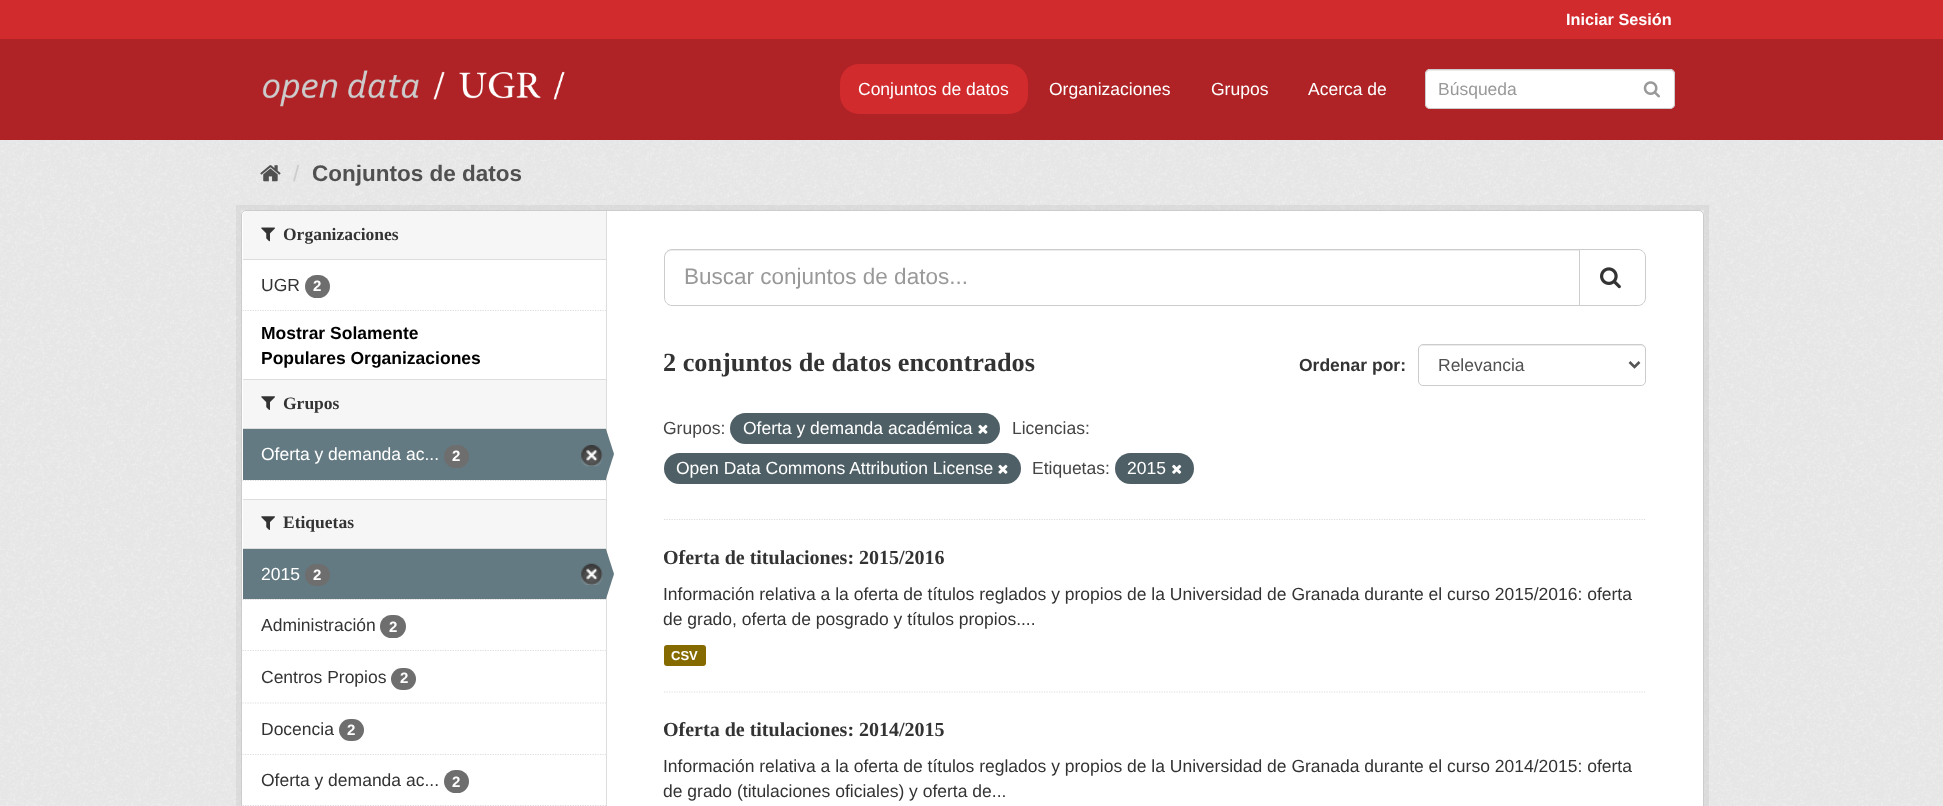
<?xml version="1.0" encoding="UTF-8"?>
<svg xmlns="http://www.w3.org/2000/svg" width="1943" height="806">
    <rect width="100%" height="100%" fill="#D12B2E"/>
    <text x="1566" y="25" font-family="Liberation Sans" font-size="16.25" font-weight="700" fill="#FFFFFF">Iniciar Sesión</text>
    <rect x="0" y="39" width="1943" height="101" fill="#AF2326"/>
    <image x="262" y="70" width="303" height="37" href="img_01.png"/>
    <rect x="840" y="64" width="188" height="50" rx="19" fill="#D12B2E"/>
    <text x="858" y="95" font-family="Liberation Sans" font-size="17.5" fill="#FFFFFF">Conjuntos de datos</text>
    <text x="1049" y="95" font-family="Liberation Sans" font-size="17.5" fill="#FFFFFF">Organizaciones</text>
    <text x="1211" y="95" font-family="Liberation Sans" font-size="17.5" fill="#FFFFFF">Grupos</text>
    <text x="1308" y="95" font-family="Liberation Sans" font-size="17.5" fill="#FFFFFF">Acerca de</text>
    <rect x="1425" y="69" width="250" height="40" rx="5" fill="#FFFFFF"/>
    <path d="M 1430 71 H 1670 C 1672 71 1674 73 1674 75 V 74 C 1674 72 1672 70 1670 70 H 1430 C 1428 70 1426 72 1426 74 V 75 C 1426 73 1428 71 1430 71 Z" fill="#ECECEC"/>
    <rect x="1425.5" y="69.5" width="249" height="39" rx="4.5" fill="none" stroke="#CCCCCC"/>
    <text x="1438" y="95" font-family="Liberation Sans" font-size="17.5" fill="#999999">Búsqueda</text>
    <image x="1643" y="81" width="17" height="17" href="img_02.png"/>
    <rect x="0" y="140" width="1943" height="666" fill="#EEEEEE"/>
    <image x="0" y="140" width="1943" height="666" href="img_03.png"/>
    <image x="260" y="165" width="21" height="17" href="img_04.png"/>
    <text x="293" y="181" font-family="Liberation Sans" font-size="22.5" fill="#CCCCCC">/</text>
    <text x="312" y="181" font-family="Liberation Sans" font-size="22.5" font-weight="700" fill="#505050">Conjuntos de datos</text>
    <rect x="238.5" y="207.5" width="1468" height="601" fill="none" stroke="#000000" stroke-opacity="0.05" stroke-width="5"/>
    <rect x="241.5" y="210.5" width="1462" height="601" rx="4.5" fill="#FFFFFF" stroke="#CCCCCC"/>
    <path d="M 247 211 H 606 V 260 H 243 V 215 C 243 213 245 211 247 211 Z" fill="#F6F6F6"/>
    <rect x="243" y="259" width="363" height="1" fill="#DDDDDD"/>
    <image x="261" y="227" width="14" height="15" href="img_05.png"/>
    <text x="283" y="240" font-family="Liberation Serif" font-size="17.5" font-weight="700" fill="#333333">Organizaciones</text>
    <text x="261" y="291" font-family="Liberation Sans" font-size="17.5" fill="#333333">UGR</text>
    <rect x="305" y="275" width="25" height="23" rx="11.5" fill="#6E6E6E"/>
    <text x="313" y="291" font-family="Liberation Sans" font-size="15" font-weight="700" fill="#FFFFFF">2</text>
    <path d="M 242.5 310.5 H 606" fill="none" stroke="#DDDDDD" stroke-width="1.2" stroke-dasharray="1.25 1.25"/>
    <text font-family="Liberation Sans" font-size="17.5" font-weight="700" fill="#000000">
        <tspan x="261" y="339">Mostrar Solamente</tspan>
        <tspan x="261" y="364">Populares Organizaciones</tspan>
    </text>
    <rect x="243" y="380" width="363" height="48" fill="#F6F6F6"/>
    <rect x="243" y="379" width="363" height="1" fill="#DDDDDD"/>
    <rect x="243" y="428" width="363" height="1" fill="#DDDDDD"/>
    <image x="261" y="396" width="14" height="14" href="img_06.png"/>
    <text x="283" y="409" font-family="Liberation Serif" font-size="17.5" font-weight="700" fill="#333333">Grupos</text>
    <path d="M 242.5 480.5 H 606" fill="none" stroke="#DDDDDD" stroke-width="1.2" stroke-dasharray="1.25 1.25"/>
    <rect x="243" y="429" width="363" height="51" fill="#647A82"/>
    <text x="261" y="460" font-family="Liberation Sans" font-size="17.5" fill="#FFFFFF">Oferta y demanda ac...</text>
    <rect x="444" y="445" width="25" height="23" rx="11.5" fill="#6E6E6E"/>
    <text x="452" y="461" font-family="Liberation Sans" font-size="15" font-weight="700" fill="#FFFFFF">2</text>
    <image x="581" y="445" width="22" height="22" href="img_07.png"/>
    <rect x="606" y="211" width="1" height="595" fill="#DDDDDD"/>
    <path d="M 606 479 V 429 L 614 454 Z" fill="#647A82"/>
    <rect x="243" y="500" width="363" height="48" fill="#F6F6F6"/>
    <rect x="243" y="499" width="363" height="1" fill="#DDDDDD"/>
    <rect x="243" y="548" width="363" height="1" fill="#DDDDDD"/>
    <image x="261" y="516" width="14" height="14" href="img_06.png"/>
    <text x="283" y="528" font-family="Liberation Serif" font-size="17.5" font-weight="700" fill="#333333">Etiquetas</text>
    <rect x="243" y="599" width="362" height="1" fill="#F6F6F6"/>
    <path d="M 242.5 599.5 H 606" fill="none" stroke="#DDDDDD" stroke-width="1.2" stroke-dasharray="1.25 1.25"/>
    <rect x="243" y="549" width="363" height="50" fill="#647A82"/>
    <text x="261" y="580" font-family="Liberation Sans" font-size="17.5" fill="#FFFFFF">2015</text>
    <rect x="305" y="564" width="25" height="22" rx="11" fill="#6E6E6E"/>
    <text x="313" y="580" font-family="Liberation Sans" font-size="15" font-weight="700" fill="#FFFFFF">2</text>
    <image x="581" y="563" width="22" height="22" href="img_08.png"/>
    <path d="M 606 599 V 549 L 614 574 Z" fill="#647A82"/>
    <path d="M 242.5 650.5 H 606" fill="none" stroke="#DDDDDD" stroke-width="1.2" stroke-dasharray="1.25 1.25"/>
    <text x="261" y="631" font-family="Liberation Sans" font-size="17.5" fill="#333333">Administración</text>
    <rect x="380" y="615" width="26" height="23" rx="11.5" fill="#6E6E6E"/>
    <text x="389" y="632" font-family="Liberation Sans" font-size="15" font-weight="700" fill="#FFFFFF">2</text>
    <path d="M 242.5 703 H 606" fill="none" stroke="#DDDDDD" stroke-width="1.2" stroke-dasharray="1.25 1.25"/>
    <text x="261" y="683" font-family="Liberation Sans" font-size="17.5" fill="#333333">Centros Propios</text>
    <rect x="391" y="668" width="25" height="22" rx="11" fill="#6E6E6E"/>
    <text x="400" y="683" font-family="Liberation Sans" font-size="15" font-weight="700" fill="#FFFFFF">2</text>
    <path d="M 242.5 754.5 H 606" fill="none" stroke="#DDDDDD" stroke-width="1.2" stroke-dasharray="1.25 1.25"/>
    <text x="261" y="735" font-family="Liberation Sans" font-size="17.5" fill="#333333">Docencia</text>
    <rect x="339" y="719" width="25" height="22" rx="11" fill="#6E6E6E"/>
    <text x="347" y="735" font-family="Liberation Sans" font-size="15" font-weight="700" fill="#FFFFFF">2</text>
    <path d="M 242.5 805.5 H 606" fill="none" stroke="#DDDDDD" stroke-width="1.2" stroke-dasharray="1.25 1.25"/>
    <text x="261" y="786" font-family="Liberation Sans" font-size="17.5" fill="#333333">Oferta y demanda ac...</text>
    <rect x="444" y="770" width="25" height="23" rx="11.5" fill="#6E6E6E"/>
    <text x="452" y="787" font-family="Liberation Sans" font-size="15" font-weight="700" fill="#FFFFFF">2</text>
    <path d="M 664 519.5 H 1646" fill="none" stroke="#DDDDDD" stroke-width="1.2" stroke-dasharray="1.25 1.25"/>
    <path d="M 671 251 H 1579 V 250 H 671 C 666 250 665 254 665 258 C 665 254 668 251 671 251 Z" fill="#ECECEC"/>
    <path d="M 672 249.5 H 1579.5 V 305.5 H 672 C 668 305.5 664.5 302 664.5 298 V 257 C 664.5 253 668 249.5 672 249.5 Z" fill="none" stroke="#CCCCCC"/>
    <text x="684" y="284" font-family="Liberation Sans" font-size="22.5" fill="#999999">Buscar conjuntos de datos...</text>
    <path d="M 1579.5 249.5 H 1638 C 1642 249.5 1645.5 253 1645.5 257 V 298 C 1645.5 302 1642 305.5 1638 305.5 H 1579.5 Z" fill="#FFFFFF" stroke="#CCCCCC"/>
    <image x="1600" y="267" width="21" height="22" href="img_09.png"/>
    <text x="663" y="371" font-family="Liberation Serif" font-size="26.25" font-weight="700" fill="#333333">2 conjuntos de datos encontrados</text>
    <text x="1299" y="371" font-family="Liberation Sans" font-size="17.5" font-weight="700" fill="#333333">Ordenar por:</text>
    <path d="M 1422 346 H 1641 C 1643 346 1645 348 1645 350 C 1645 347 1644 345 1641 345 H 1423 C 1420 345 1419 347 1419 350 C 1419 348 1420 346 1422 346 Z" fill="#ECECEC"/>
    <rect x="1418.5" y="344.5" width="227" height="41" rx="4.5" fill="none" stroke="#CCCCCC"/>
    <path d="M 1629.5 362 L 1634.5 367 L 1639.5 362" fill="none" stroke="#555555" stroke-width="2.5"/>
    <text x="1438" y="371" font-family="Liberation Sans" font-size="17.5" fill="#505050">Relevancia</text>
    <text x="663" y="434" font-family="Liberation Sans" font-size="17.5" fill="#444444">Grupos:</text>
    <rect x="730" y="413" width="270" height="31" rx="15.5" fill="#4E5F65"/>
    <text x="743" y="434" font-family="Liberation Sans" font-size="17.5" fill="#FFFFFF">Oferta y demanda académica</text>
    <image x="978" y="424" width="10" height="10" href="img_10.png"/>
    <text x="1012" y="434" font-family="Liberation Sans" font-size="17.5" fill="#444444">Licencias:</text>
    <rect x="664" y="453" width="357" height="31" rx="15.5" fill="#4E5F65"/>
    <text x="676" y="474" font-family="Liberation Sans" font-size="17.5" fill="#FFFFFF">Open Data Commons Attribution License</text>
    <image x="998" y="464" width="10" height="10" href="img_10.png"/>
    <text x="1032" y="474" font-family="Liberation Sans" font-size="17.5" fill="#444444">Etiquetas:</text>
    <rect x="1115" y="453" width="79" height="31" rx="15.5" fill="#4E5F65"/>
    <text x="1127" y="474" font-family="Liberation Sans" font-size="17.5" fill="#FFFFFF">2015</text>
    <image x="1172" y="464" width="10" height="10" href="img_11.png"/>
    <path d="M 664 692 H 1646" fill="none" stroke="#DDDDDD" stroke-width="1.2" stroke-dasharray="1.25 1.25"/>
    <text x="663" y="564" font-family="Liberation Serif" font-size="20" font-weight="700" fill="#333333">Oferta de titulaciones: 2015/2016</text>
    <text font-family="Liberation Sans" font-size="17.5" fill="#333333">
        <tspan x="663" y="600">Información relativa a la oferta de títulos reglados y propios de la Universidad de Granada durante el curso 2015/2016: oferta</tspan>
        <tspan x="663" y="625">de grado, oferta de posgrado y títulos propios....</tspan>
    </text>
    <rect x="664" y="645" width="42" height="21" rx="3" fill="#856A00"/>
    <text x="671" y="660" font-family="Liberation Sans" font-size="13" font-weight="700" fill="#FFFFFF">CSV</text>
    <text x="663" y="736" font-family="Liberation Serif" font-size="20" font-weight="700" fill="#333333">Oferta de titulaciones: 2014/2015</text>
    <text font-family="Liberation Sans" font-size="17.5" fill="#333333">
        <tspan x="663" y="772">Información relativa a la oferta de títulos reglados y propios de la Universidad de Granada durante el curso 2014/2015: oferta</tspan>
        <tspan x="663" y="797">de grado (titulaciones oficiales) y oferta de...</tspan>
    </text>
</svg>
